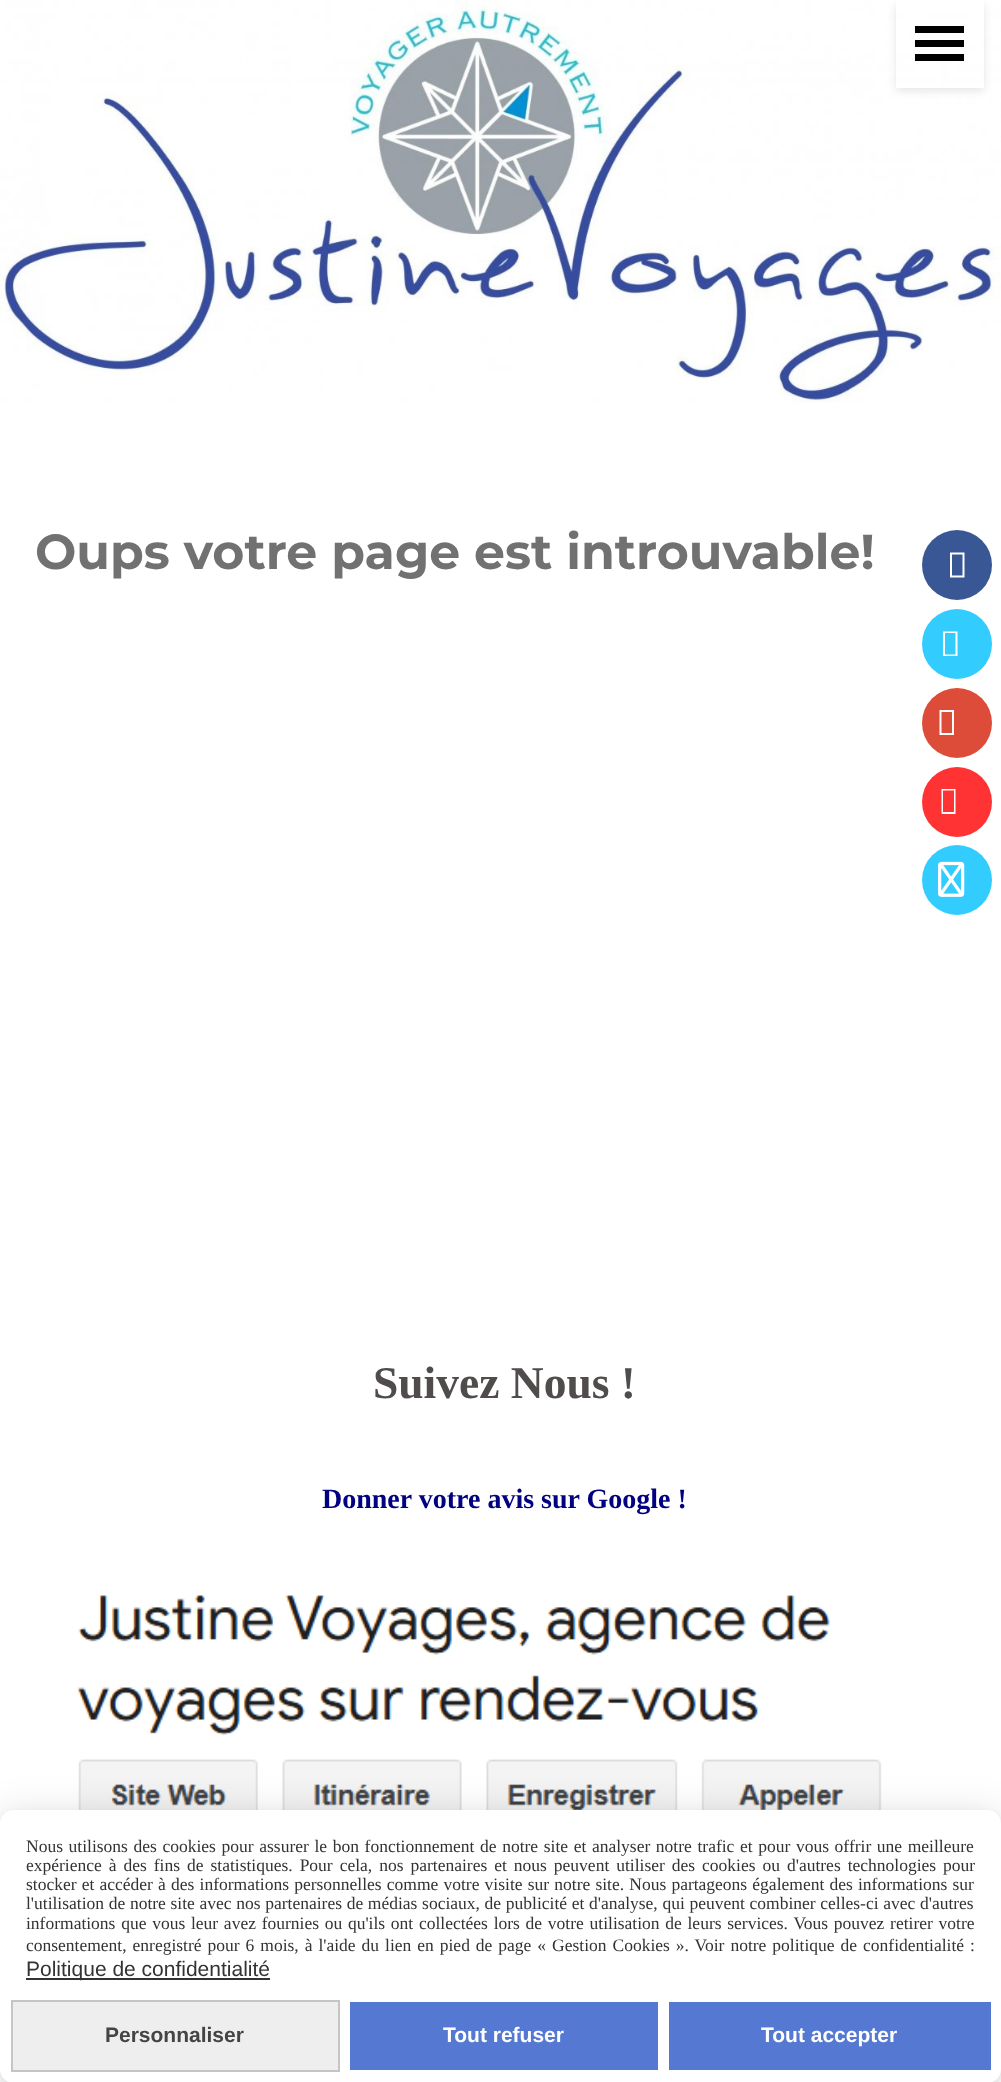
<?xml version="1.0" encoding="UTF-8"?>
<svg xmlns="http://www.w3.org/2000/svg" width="1001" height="2082">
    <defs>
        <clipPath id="clip1"><path d="M 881 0 H 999 V 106 H 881 Z M 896 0 H 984 V 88 H 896 Z" clip-rule="evenodd"/></clipPath>
        <filter id="blur1" x="-50%" y="-200%" width="200%" height="500%"><feGaussianBlur stdDeviation="4.5"/></filter>
        <filter id="blur2" x="-50%" y="-200%" width="200%" height="500%"><feGaussianBlur stdDeviation="5"/></filter>
        <filter id="blur3" x="-50%" y="-200%" width="200%" height="500%"><feGaussianBlur stdDeviation="21"/></filter>
    </defs>
    <rect width="100%" height="100%" fill="#FFFFFF"/>
    <image x="0" y="0" width="1001" height="403" href="img_01.png"/>
    <g clip-path="url(#clip1)">
        <rect x="896" y="4" width="88" height="87" fill="#000000" fill-opacity="0.1" filter="url(#blur1)"/>
    </g>
    <rect x="915" y="26" width="49" height="7" fill="#000000"/>
    <rect x="915" y="40" width="49" height="7" fill="#000000"/>
    <rect x="915" y="54" width="49" height="7" fill="#000000"/>
    <text x="35" y="569" font-family="Montserrat" font-size="49" font-weight="700" fill="#717171">Oups votre page est introuvable!</text>
    <text x="373" y="1398" font-family="Liberation Serif" font-size="45.5" font-weight="700" fill="#514C4C">Suivez Nous !</text>
    <text x="322" y="1508" font-family="Liberation Serif" font-size="28" font-weight="700" fill="#000080">Donner votre avis sur Google !</text>
    <image x="76" y="1594" width="806" height="216" href="img_02.png"/>
    <circle cx="957" cy="565" r="35" fill="#3A5795"/>
    <path d="M 950 577.5 V 552.5 H 964.5 V 577.5 Z M 952 575.5 H 962.5 V 554.5 H 952 Z" fill="#FFFFFF"/>
    <circle cx="957" cy="644" r="35" fill="#33CCFF"/>
    <path d="M 943 656 V 631.5 H 957.5 V 656 Z M 945 654.5 H 955.5 V 633 H 945 Z" fill="#FFFFFF"/>
    <circle cx="957" cy="723" r="35" fill="#DD4B39"/>
    <path d="M 939.5 735 V 710 H 954 V 735 Z M 941.5 733 H 952 V 712 H 941.5 Z" fill="#FFFFFF"/>
    <circle cx="957" cy="802" r="35" fill="#FF3333"/>
    <path d="M 941.5 814 V 789 H 955.5 V 814 Z M 943 812 H 954 V 790.5 H 943 Z" fill="#FFFFFF"/>
    <circle cx="957" cy="880" r="35" fill="#33CCFF"/>
    <image x="938" y="861" width="27" height="36" href="img_03.png"/>
    <rect x="0" y="1813" width="1001" height="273" rx="14" fill="#000000" fill-opacity="0.05" filter="url(#blur2)"/>
    <rect x="0" y="1817" width="1001" height="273" rx="14" fill="#000000" fill-opacity="0.15" filter="url(#blur3)"/>
    <rect x="0" y="1810" width="1001" height="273" rx="14" fill="#FFFFFF"/>
    <text font-family="Liberation Serif" font-size="17.5" fill="#333333">
        <tspan x="26" y="1852" word-spacing="1.25">Nous utilisons des cookies pour assurer le bon fonctionnement de notre site et analyser notre trafic et pour vous offrir une meilleure</tspan>
        <tspan x="26" y="1871" word-spacing="2.6">expérience à des fins de statistiques. Pour cela, nos partenaires et nous peuvent utiliser des cookies ou d'autres technologies pour</tspan>
        <tspan x="26" y="1890" word-spacing="0.8">stocker et accéder à des informations personnelles comme votre visite sur notre site. Nous partageons également des informations sur</tspan>
        <tspan x="26" y="1909" word-spacing="0.3">l'utilisation de notre site avec nos partenaires de médias sociaux, de publicité et d'analyse, qui peuvent combiner celles-ci avec d'autres</tspan>
        <tspan x="26" y="1929" word-spacing="1.35">informations que vous leur avez fournies ou qu'ils ont collectées lors de votre utilisation de leurs services. Vous pouvez retirer votre</tspan>
        <tspan x="26" y="1951" word-spacing="1.6">consentement, enregistré pour 6 mois, à l'aide du lien en pied de page « Gestion Cookies ». Voir notre politique de confidentialité :</tspan>
    </text>
    <rect x="26" y="1978" width="244" height="2" fill="#333333"/>
    <text x="26" y="1976" font-family="Liberation Sans" font-size="21" fill="#333333">Politique de confidentialité</text>
    <rect x="12" y="2001" width="327" height="70" fill="#EEEEEE" stroke="#C5C5C5" stroke-width="2"/>
    <text x="105" y="2042" font-family="Liberation Sans" font-size="21" font-weight="700" fill="#444444">Personnaliser</text>
    <rect x="350" y="2002" width="308" height="68" fill="#5579D2"/>
    <text x="443" y="2042" font-family="Liberation Sans" font-size="21" font-weight="700" fill="#FFFFFF">Tout refuser</text>
    <rect x="669" y="2002" width="322" height="68" fill="#5579D2"/>
    <text x="761" y="2042" font-family="Liberation Sans" font-size="21" font-weight="700" fill="#FFFFFF">Tout accepter</text>
</svg>
